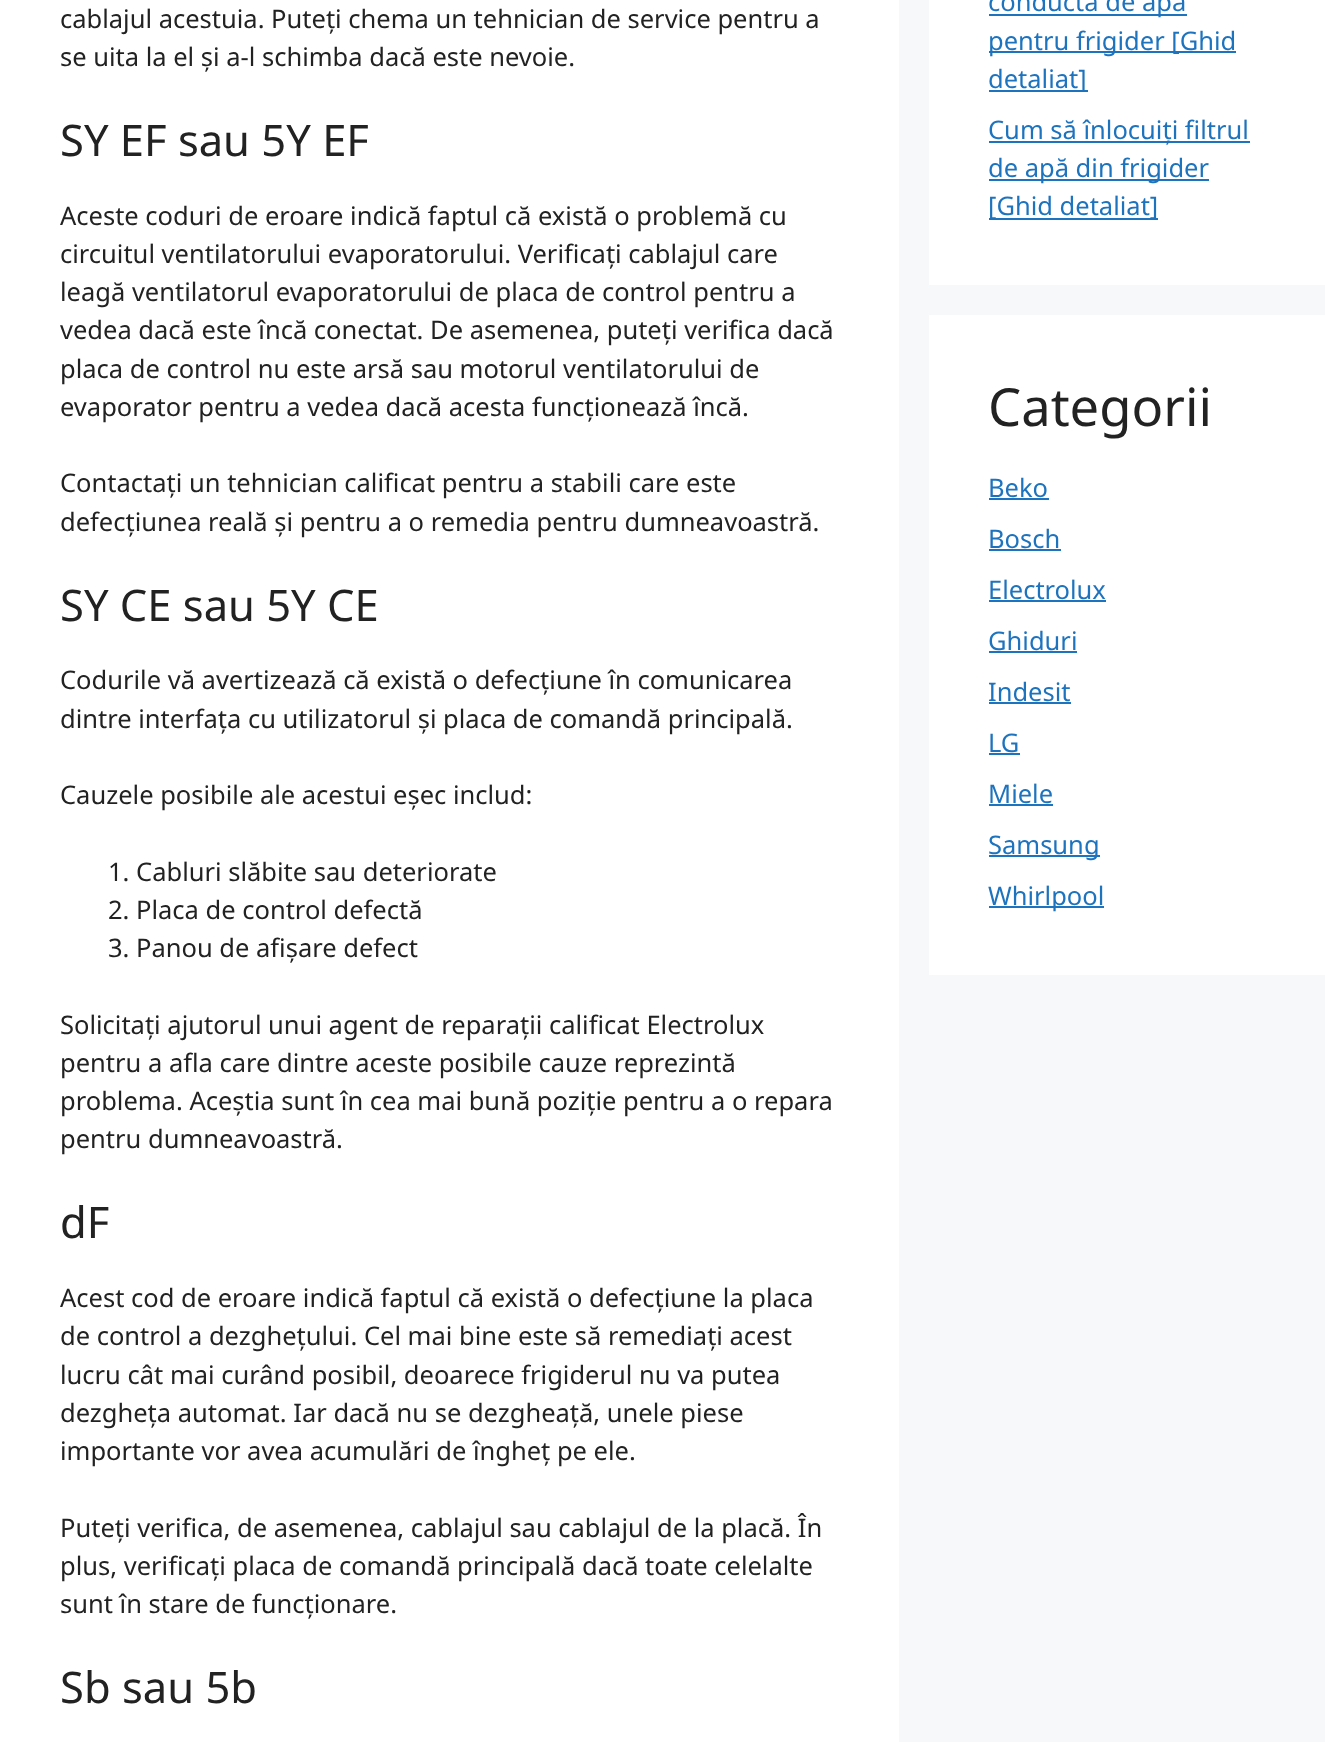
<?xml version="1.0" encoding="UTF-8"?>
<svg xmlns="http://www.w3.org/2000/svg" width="1325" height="1742">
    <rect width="100%" height="100%" fill="#F7F8F9"/>
    <rect x="0" y="0" width="899" height="1742" fill="#FFFFFF"/>
    <text font-family="Noto Sans" font-size="25.5" fill="#222222">
        <tspan x="60" y="28">cablajul acestuia. Puteți chema un tehnician de service pentru a</tspan>
        <tspan x="60" y="66">se uita la el și a-l schimba dacă este nevoie.</tspan>
    </text>
    <text x="60" y="156" font-family="Noto Sans" font-size="43.5" fill="#222222">SY EF sau 5Y EF</text>
    <text font-family="Noto Sans" font-size="25.5" fill="#222222">
        <tspan x="60" y="225">Aceste coduri de eroare indică faptul că există o problemă cu</tspan>
        <tspan x="60" y="263">circuitul ventilatorului evaporatorului. Verificați cablajul care</tspan>
        <tspan x="60" y="301">leagă ventilatorul evaporatorului de placa de control pentru a</tspan>
        <tspan x="60" y="339">vedea dacă este încă conectat. De asemenea, puteți verifica dacă</tspan>
        <tspan x="60" y="378">placa de control nu este arsă sau motorul ventilatorului de</tspan>
        <tspan x="60" y="416">evaporator pentru a vedea dacă acesta funcționează încă.</tspan>
    </text>
    <text font-family="Noto Sans" font-size="25.5" fill="#222222">
        <tspan x="60" y="492">Contactați un tehnician calificat pentru a stabili care este</tspan>
        <tspan x="60" y="531">defecțiunea reală și pentru a o remedia pentru dumneavoastră.</tspan>
    </text>
    <text x="60" y="621" font-family="Noto Sans" font-size="43.5" fill="#222222">SY CE sau 5Y CE</text>
    <text font-family="Noto Sans" font-size="25.5" fill="#222222">
        <tspan x="60" y="689">Codurile vă avertizează că există o defecțiune în comunicarea</tspan>
        <tspan x="60" y="728">dintre interfața cu utilizatorul și placa de comandă principală.</tspan>
    </text>
    <text x="60" y="804" font-family="Noto Sans" font-size="25.5" fill="#222222">Cauzele posibile ale acestui eșec includ:</text>
    <text font-family="Noto Sans" font-size="25.5" fill="#222222">
        <tspan x="108" y="881">1. Cabluri slăbite sau deteriorate</tspan>
        <tspan x="108" y="919">2. Placa de control defectă</tspan>
        <tspan x="108" y="957">3. Panou de afișare defect</tspan>
    </text>
    <text font-family="Noto Sans" font-size="25.5" fill="#222222">
        <tspan x="60" y="1034">Solicitați ajutorul unui agent de reparații calificat Electrolux</tspan>
        <tspan x="60" y="1072">pentru a afla care dintre aceste posibile cauze reprezintă</tspan>
        <tspan x="60" y="1110">problema. Aceștia sunt în cea mai bună poziție pentru a o repara</tspan>
        <tspan x="60" y="1148">pentru dumneavoastră.</tspan>
    </text>
    <text x="60" y="1238" font-family="Noto Sans" font-size="43.5" fill="#222222">dF</text>
    <text font-family="Noto Sans" font-size="25.5" fill="#222222">
        <tspan x="60" y="1307">Acest cod de eroare indică faptul că există o defecțiune la placa</tspan>
        <tspan x="60" y="1345">de control a dezghețului. Cel mai bine este să remediați acest</tspan>
        <tspan x="60" y="1384">lucru cât mai curând posibil, deoarece frigiderul nu va putea</tspan>
        <tspan x="60" y="1422">dezgheța automat. Iar dacă nu se dezgheață, unele piese</tspan>
        <tspan x="60" y="1460">importante vor avea acumulări de îngheț pe ele.</tspan>
    </text>
    <text font-family="Noto Sans" font-size="25.5" fill="#222222">
        <tspan x="60" y="1537">Puteți verifica, de asemenea, cablajul sau cablajul de la placă. În</tspan>
        <tspan x="60" y="1575">plus, verificați placa de comandă principală dacă toate celelalte</tspan>
        <tspan x="60" y="1613">sunt în stare de funcționare.</tspan>
    </text>
    <text x="60" y="1703" font-family="Noto Sans" font-size="43.5" fill="#222222">Sb sau 5b</text>
    <rect x="929" y="0" width="396" height="285" fill="#FFFFFF"/>
    <rect x="989" y="14" width="198" height="2" fill="#1E73BE"/>
    <text x="988" y="11" font-family="Noto Sans" font-size="25.5" fill="#1E73BE">conductă de apă</text>
    <rect x="989" y="51" width="247" height="2" fill="#1E73BE"/>
    <text x="988" y="50" font-family="Noto Sans" font-size="25.5" fill="#1E73BE">pentru frigider [Ghid</text>
    <rect x="989" y="90" width="99" height="2" fill="#1E73BE"/>
    <text x="988" y="88" font-family="Noto Sans" font-size="25.5" fill="#1E73BE">detaliat]</text>
    <rect x="989" y="141" width="261" height="2" fill="#1E73BE"/>
    <text x="988" y="139" font-family="Noto Sans" font-size="25.5" fill="#1E73BE">Cum să înlocuiți filtrul</text>
    <rect x="989" y="179" width="220" height="2" fill="#1E73BE"/>
    <text x="988" y="177" font-family="Noto Sans" font-size="25.5" fill="#1E73BE">de apă din frigider</text>
    <rect x="989" y="218" width="169" height="2" fill="#1E73BE"/>
    <text x="988" y="215" font-family="Noto Sans" font-size="25.5" fill="#1E73BE">[Ghid detaliat]</text>
    <rect x="929" y="315" width="396" height="660" fill="#FFFFFF"/>
    <text x="988" y="426" font-family="Noto Sans" font-size="52.5" fill="#222222">Categorii</text>
    <text x="988" y="497" font-family="Noto Sans" font-size="25.5" fill="#1E73BE">Beko</text>
    <rect x="989" y="498" width="60" height="2" fill="#1E73BE"/>
    <text x="988" y="548" font-family="Noto Sans" font-size="25.5" fill="#1E73BE">Bosch</text>
    <rect x="989" y="549" width="72" height="2" fill="#1E73BE"/>
    <text x="988" y="599" font-family="Noto Sans" font-size="25.5" fill="#1E73BE">Electrolux</text>
    <rect x="989" y="600" width="117" height="2" fill="#1E73BE"/>
    <text x="988" y="650" font-family="Noto Sans" font-size="25.5" fill="#1E73BE">Ghiduri</text>
    <rect x="989" y="651" width="88" height="2" fill="#1E73BE"/>
    <text x="988" y="701" font-family="Noto Sans" font-size="25.5" fill="#1E73BE">Indesit</text>
    <rect x="989" y="702" width="82" height="2" fill="#1E73BE"/>
    <text x="988" y="752" font-family="Noto Sans" font-size="25.5" fill="#1E73BE">LG</text>
    <rect x="989" y="753" width="31" height="2" fill="#1E73BE"/>
    <text x="988" y="803" font-family="Noto Sans" font-size="25.5" fill="#1E73BE">Miele</text>
    <rect x="989" y="804" width="64" height="2" fill="#1E73BE"/>
    <rect x="989" y="855" width="111" height="2" fill="#1E73BE"/>
    <text x="988" y="854" font-family="Noto Sans" font-size="25.5" fill="#1E73BE">Samsung</text>
    <rect x="989" y="906" width="115" height="2" fill="#1E73BE"/>
    <text x="988" y="905" font-family="Noto Sans" font-size="25.5" fill="#1E73BE">Whirlpool</text>
</svg>
